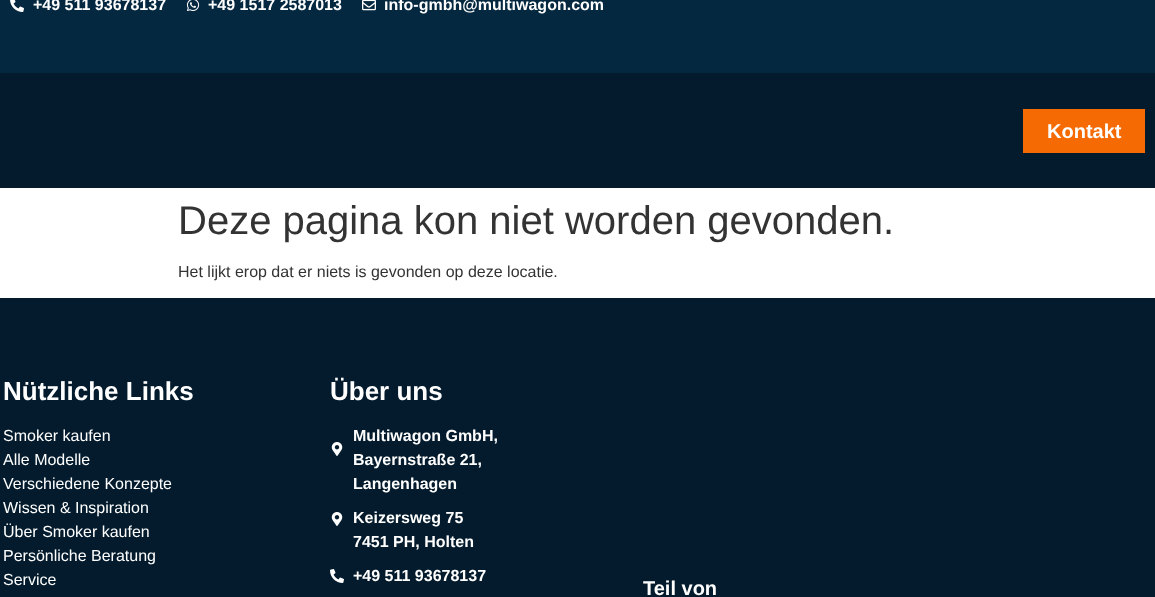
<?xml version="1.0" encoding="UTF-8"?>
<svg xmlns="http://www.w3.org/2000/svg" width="1155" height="597">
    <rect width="100%" height="100%" fill="#FFFFFF"/>
    <rect x="0" y="0" width="1155" height="73" fill="#052841"/>
    <image x="10" y="0" width="14" height="12" href="img_01.png"/>
    <text x="33" y="10" font-family="Liberation Sans" font-size="16" font-weight="700" fill="#FFFFFF">+49 511 93678137</text>
    <image x="186" y="0" width="14" height="11" href="img_02.png"/>
    <text x="208" y="10" font-family="Liberation Sans" font-size="16" font-weight="700" fill="#FFFFFF">+49 1517 2587013</text>
    <image x="362" y="0" width="14" height="11" href="img_03.png"/>
    <text x="384" y="10" font-family="Liberation Sans" font-size="16" font-weight="700" fill="#FFFFFF">info-gmbh@multiwagon.com</text>
    <rect x="0" y="73" width="1155" height="115" fill="#031B2C"/>
    <rect x="1023" y="109" width="122" height="44" fill="#F66A03"/>
    <text x="1047" y="138" font-family="Liberation Sans" font-size="20" font-weight="700" fill="#FFFFFF">Kontakt</text>
    <text x="178" y="234" font-family="Liberation Sans" font-size="40" fill="#333333">Deze pagina kon niet worden gevonden.</text>
    <text x="178" y="277" font-family="Liberation Sans" font-size="16" fill="#333333">Het lijkt erop dat er niets is gevonden op deze locatie.</text>
    <rect x="0" y="298" width="1155" height="299" fill="#031B2C"/>
    <text x="3" y="400" font-family="Liberation Sans" font-size="26" font-weight="700" fill="#FFFFFF">Nützliche Links</text>
    <text font-family="Liberation Sans" font-size="16" fill="#FFFFFF">
        <tspan x="3" y="441">Smoker kaufen</tspan>
        <tspan x="3" y="465">Alle Modelle</tspan>
        <tspan x="3" y="489">Verschiedene Konzepte</tspan>
        <tspan x="3" y="513">Wissen &amp; Inspiration</tspan>
        <tspan x="3" y="537">Über Smoker kaufen</tspan>
        <tspan x="3" y="561">Persönliche Beratung</tspan>
        <tspan x="3" y="585">Service</tspan>
    </text>
    <text x="330" y="400" font-family="Liberation Sans" font-size="26" font-weight="700" fill="#FFFFFF">Über uns</text>
    <image x="331" y="442" width="12" height="14" href="img_04.png"/>
    <text font-family="Liberation Sans" font-size="16" font-weight="700" fill="#FFFFFF">
        <tspan x="353" y="441">Multiwagon GmbH,</tspan>
        <tspan x="353" y="465">Bayernstraße 21,</tspan>
        <tspan x="353" y="489">Langenhagen</tspan>
    </text>
    <image x="331" y="512" width="12" height="14" href="img_04.png"/>
    <text font-family="Liberation Sans" font-size="16" font-weight="700" fill="#FFFFFF">
        <tspan x="353" y="523">Keizersweg 75</tspan>
        <tspan x="353" y="547">7451 PH, Holten</tspan>
    </text>
    <image x="330" y="569" width="14" height="14" href="img_05.png"/>
    <text x="353" y="581" font-family="Liberation Sans" font-size="16" font-weight="700" fill="#FFFFFF">+49 511 93678137</text>
    <text x="643" y="595" font-family="Liberation Sans" font-size="20" font-weight="700" fill="#FFFFFF">Teil von</text>
</svg>
